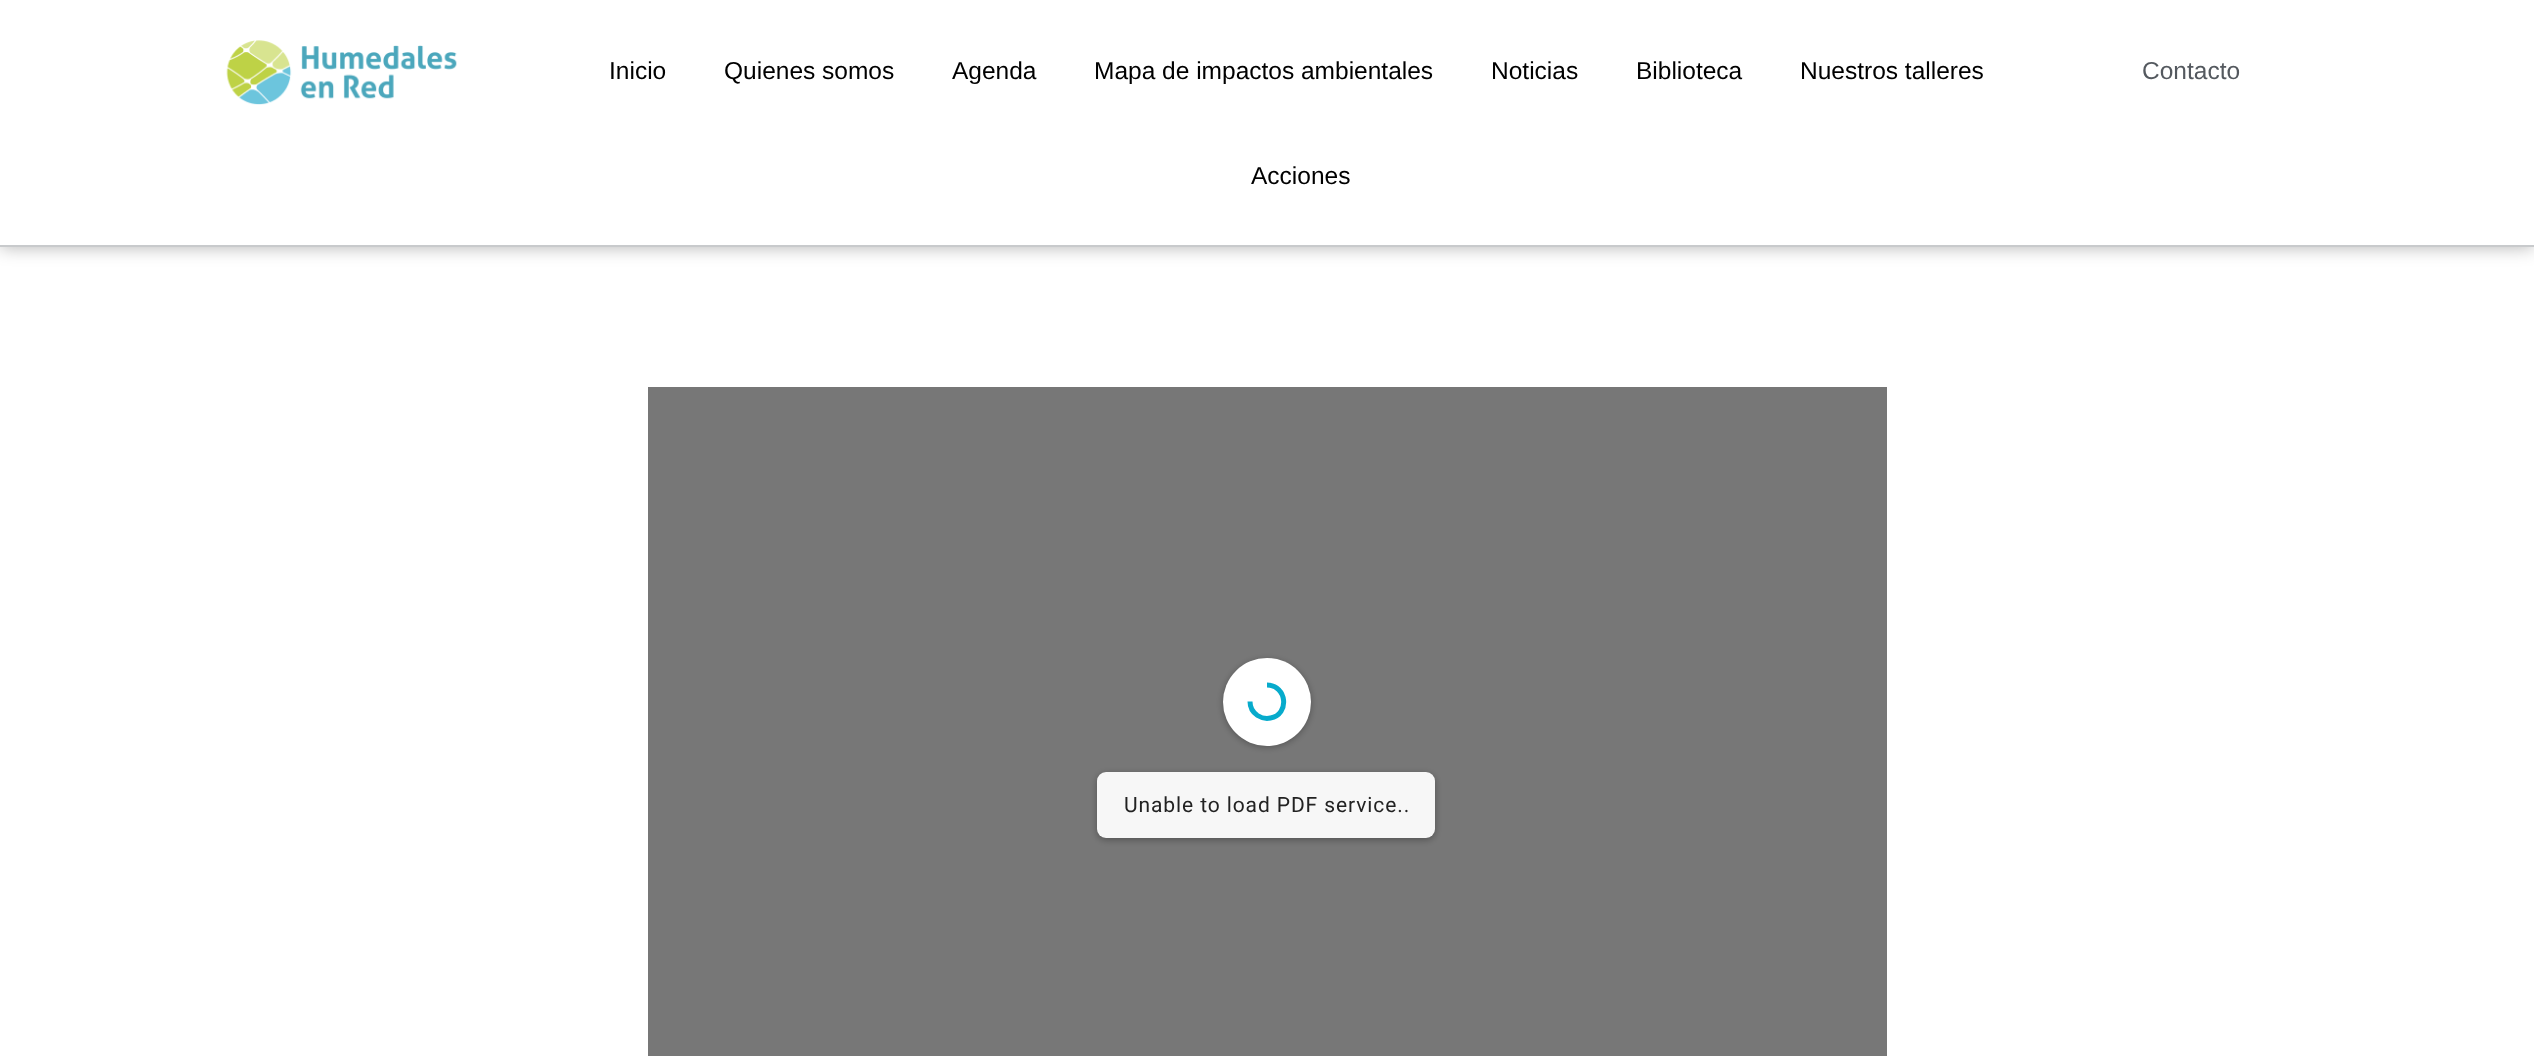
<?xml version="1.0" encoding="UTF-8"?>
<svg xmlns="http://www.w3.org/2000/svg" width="2534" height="1056">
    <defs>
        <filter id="blur1" x="-50%" y="-200%" width="200%" height="500%"><feGaussianBlur stdDeviation="9"/></filter>
        <filter id="blur2" x="-50%" y="-200%" width="200%" height="500%"><feGaussianBlur stdDeviation="3.5"/></filter>
    </defs>
    <rect width="100%" height="100%" fill="#FFFFFF"/>
    <rect x="0" y="0" width="2534" height="247" fill="#000000" fill-opacity="0.3" filter="url(#blur1)"/>
    <rect x="0" y="0" width="2534" height="245" fill="#FFFFFF"/>
    <rect x="0" y="245" width="2534" height="2" fill="#C8CACC"/>
    <image x="226" y="40" width="231" height="65" href="img_01.png"/>
    <text x="609" y="79" font-family="Liberation Sans" font-size="24.5" fill="#000000">Inicio</text>
    <text x="724" y="79" font-family="Liberation Sans" font-size="24.5" fill="#000000">Quienes somos</text>
    <text x="952" y="79" font-family="Liberation Sans" font-size="24.5" fill="#000000">Agenda</text>
    <text x="1094" y="79" font-family="Liberation Sans" font-size="24.5" fill="#000000">Mapa de impactos ambientales</text>
    <text x="1491" y="79" font-family="Liberation Sans" font-size="24.5" fill="#000000">Noticias</text>
    <text x="1636" y="79" font-family="Liberation Sans" font-size="24.5" fill="#000000">Biblioteca</text>
    <text x="1800" y="79" font-family="Liberation Sans" font-size="24.5" fill="#000000">Nuestros talleres</text>
    <text x="1251" y="184" font-family="Liberation Sans" font-size="24.5" fill="#000000">Acciones</text>
    <text x="2142" y="79" font-family="Liberation Sans" font-size="24.5" fill="#54595F">Contacto</text>
    <rect x="648" y="387" width="1239" height="669" fill="#777777"/>
    <rect x="1223" y="660" width="88" height="87" rx="43.5" fill="#000000" fill-opacity="0.3" filter="url(#blur2)"/>
    <circle cx="1267" cy="702" r="44" fill="#FFFFFF"/>
    <path d="M 1267 685 C 1287 685 1290 714.5 1270.5 718 C 1266 719 1261.5 718 1257.5 715.5 C 1253 712.5 1250 707.5 1250 701.5" fill="none" stroke="#07ABCC" stroke-width="5"/>
    <rect x="1097" y="774" width="338" height="66" rx="9" fill="#000000" fill-opacity="0.3" filter="url(#blur2)"/>
    <rect x="1097" y="772" width="338" height="66" rx="9" fill="#F7F7F7"/>
    <text x="1124" y="812" font-family="Roboto" font-size="21" letter-spacing="0.9" fill="#222222">Unable to load PDF service..</text>
</svg>
